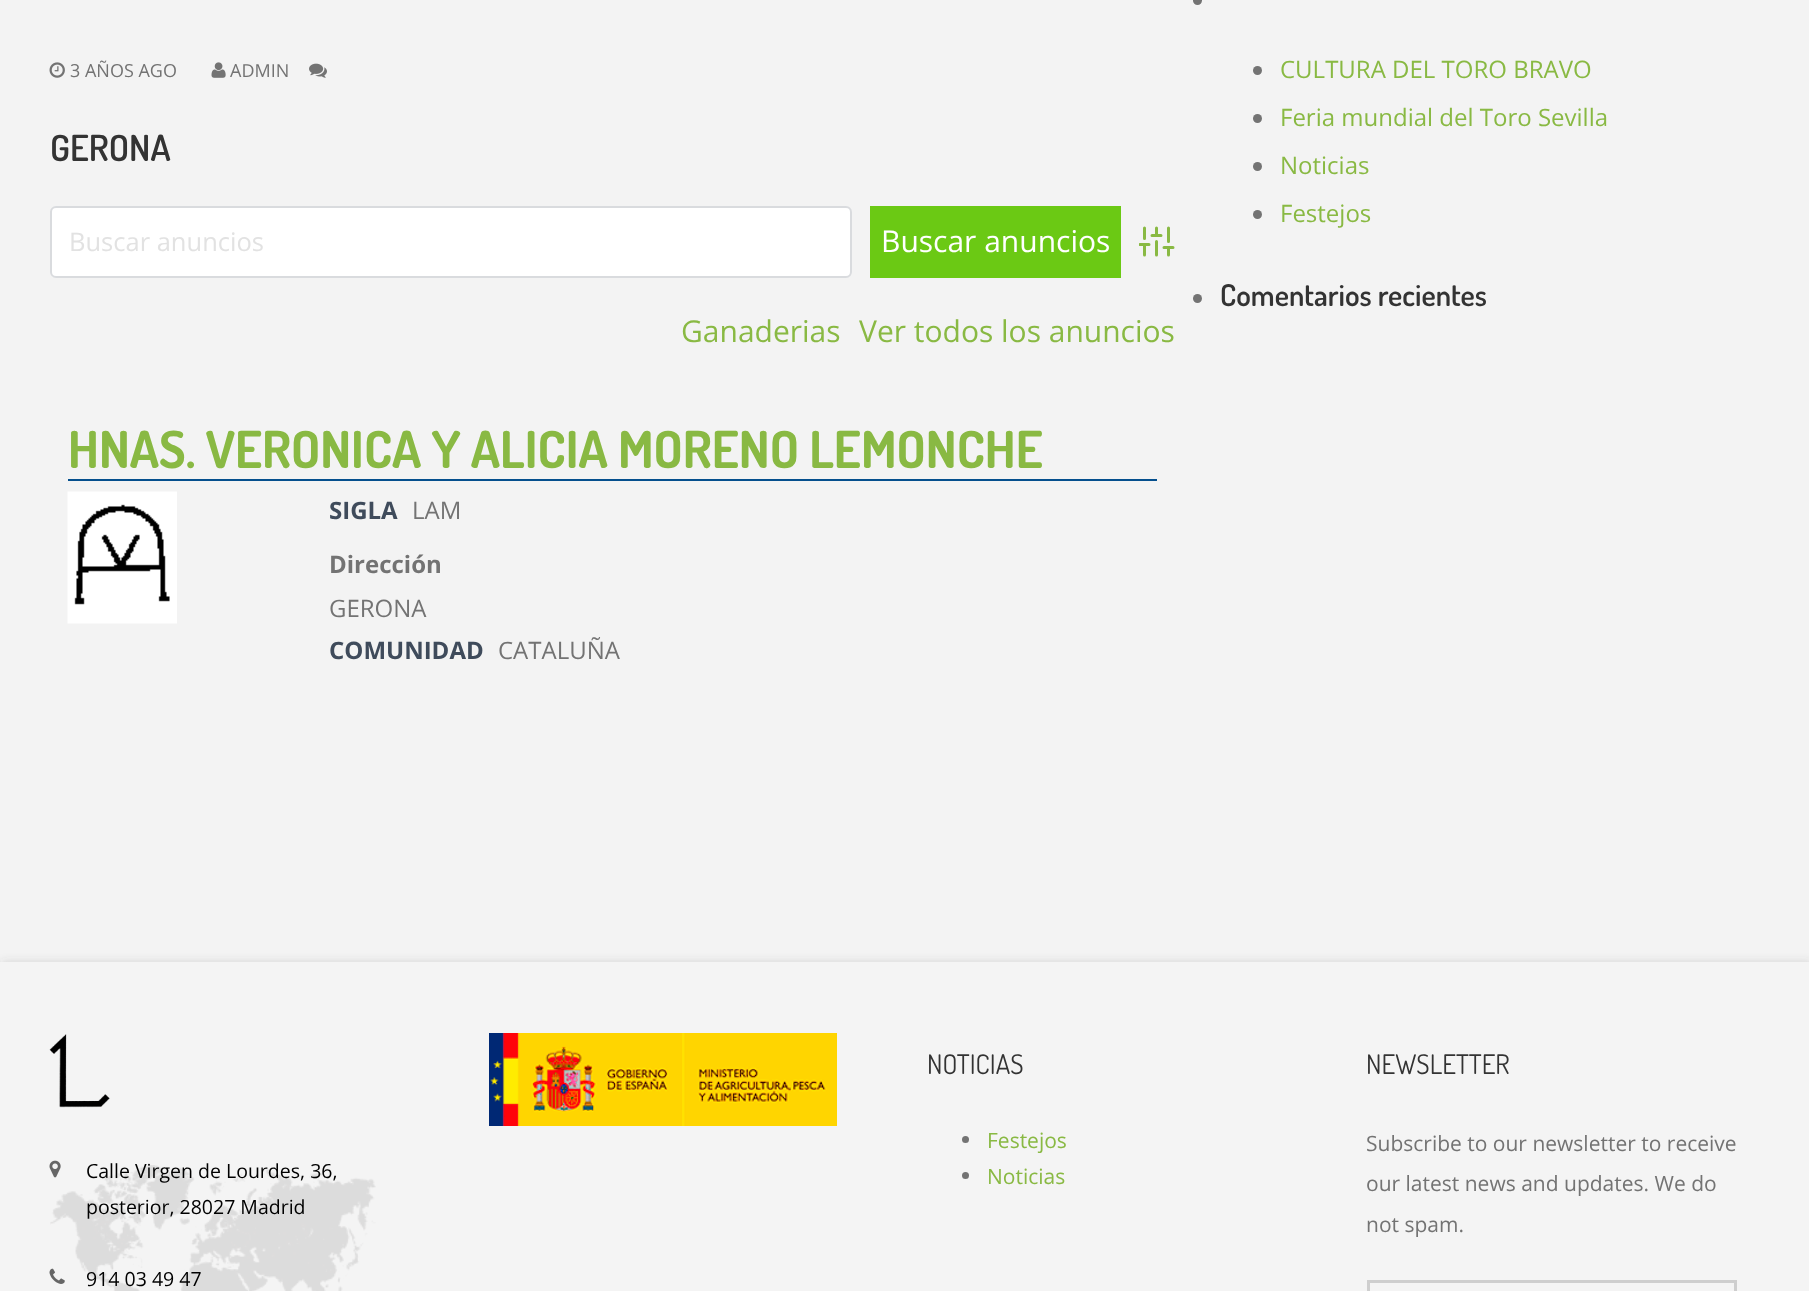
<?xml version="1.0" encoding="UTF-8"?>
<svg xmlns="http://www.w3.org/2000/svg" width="1809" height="1291">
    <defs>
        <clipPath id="clip1"><rect x="1139" y="224" width="36" height="36"/></clipPath>
        <filter id="blur1" x="-50%" y="-200%" width="200%" height="500%"><feGaussianBlur stdDeviation="4"/></filter>
    </defs>
    <rect width="100%" height="100%" fill="#F3F3F3"/>
    <image x="49" y="62" width="16" height="16" href="img_01.png"/>
    <text x="70" y="77" font-family="Open Sans" font-size="18" fill="#737373">3 AÑOS AGO</text>
    <image x="211" y="62" width="15" height="16" href="img_02.png"/>
    <text x="230" y="77" font-family="Open Sans" font-size="18" fill="#737373">ADMIN</text>
    <image x="309" y="63" width="18" height="15" href="img_03.png"/>
    <text x="50" y="161" font-family="Dosis" font-size="36" font-weight="600" fill="#333333">GERONA</text>
    <rect x="50" y="206" width="802" height="72" rx="6" fill="#FFFFFF"/>
    <rect x="51" y="207" width="800" height="70" rx="5" fill="none" stroke="#3F4B5B" stroke-opacity="0.2" stroke-width="2"/>
    <text x="69" y="251" font-family="Open Sans" font-size="25.5" fill="#E2E2E2">Buscar anuncios</text>
    <rect x="870" y="206" width="251" height="72" fill="#6BC914"/>
    <text x="881" y="252" font-family="Open Sans" font-size="30" fill="#FFFFFF">Buscar anuncios</text>
    <g clip-path="url(#clip1)">
        <path d="M 1144.5 255 V 244.5 M 1144.5 238.5 V 228 M 1156.5 255 V 241.5 M 1156.5 235.5 V 228 M 1168.5 255 V 247.5 M 1168.5 241.5 V 228 M 1140 244.5 H 1149 M 1152 235.5 H 1161 M 1164 247.5 H 1173" fill="none" stroke="#89B943" stroke-width="3" stroke-linecap="round" stroke-linejoin="round"/>
    </g>
    <text x="681" y="342" font-family="Open Sans" font-size="30" fill="#89B943">Ganaderias</text>
    <text x="859" y="342" font-family="Open Sans" font-size="30" fill="#89B943">Ver todos los anuncios</text>
    <rect x="68" y="479" width="1089" height="2" fill="#044F8D"/>
    <text x="68" y="468" font-family="Dosis" font-size="51" font-weight="700" fill="#89B943">HNAS. VERONICA Y ALICIA MORENO LEMONCHE</text>
    <image x="67" y="491" width="110" height="133" href="img_04.png"/>
    <text x="329" y="519" font-family="Open Sans" font-size="24" font-weight="700" fill="#3F4B5B">SIGLA</text>
    <text x="412" y="519" font-family="Open Sans" font-size="24" fill="#737373">LAM</text>
    <text x="329" y="573" font-family="Open Sans" font-size="24" font-weight="700" fill="#737373">Dirección</text>
    <text x="329" y="617" font-family="Open Sans" font-size="24" fill="#737373">GERONA</text>
    <text x="329" y="659" font-family="Open Sans" font-size="24" font-weight="700" fill="#3F4B5B">COMUNIDAD</text>
    <text x="498" y="659" font-family="Open Sans" font-size="24" fill="#737373">CATALUÑA</text>
    <circle cx="1197.5" cy="0.5" r="4.5" fill="#737373"/>
    <circle cx="1257.5" cy="70.5" r="4.5" fill="#737373"/>
    <text x="1280" y="78" font-family="Open Sans" font-size="24" fill="#89B943">CULTURA DEL TORO BRAVO</text>
    <circle cx="1257.5" cy="118.5" r="4.5" fill="#737373"/>
    <text x="1280" y="126" font-family="Open Sans" font-size="24" fill="#89B943">Feria mundial del Toro Sevilla</text>
    <circle cx="1257.5" cy="166.5" r="4.5" fill="#737373"/>
    <text x="1280" y="174" font-family="Open Sans" font-size="24" fill="#89B943">Noticias</text>
    <circle cx="1257.5" cy="214.5" r="4.5" fill="#737373"/>
    <text x="1280" y="222" font-family="Open Sans" font-size="24" fill="#89B943">Festejos</text>
    <circle cx="1197.5" cy="298.5" r="4.5" fill="#737373"/>
    <text x="1220" y="306" font-family="Dosis" font-size="30" font-weight="600" fill="#333333">Comentarios recientes</text>
    <rect x="2" y="962" width="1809" height="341" fill="#4D4D4D" fill-opacity="0.2" filter="url(#blur1)"/>
    <rect x="0" y="962" width="1809" height="329" fill="#F4F4F4"/>
    <image x="49" y="1034" width="61" height="74" href="img_05.png"/>
    <image x="50" y="1165" width="326" height="126" href="img_06.png"/>
    <image x="49" y="1160" width="12" height="18" href="img_07.png"/>
    <text font-family="Open Sans" font-size="19.5" fill="#000000">
        <tspan x="86" y="1178">Calle Virgen de Lourdes, 36,</tspan>
        <tspan x="86" y="1214">posterior, 28027 Madrid</tspan>
    </text>
    <image x="49" y="1268" width="16" height="16" href="img_08.png"/>
    <text x="86" y="1286" font-family="Open Sans" font-size="19.5" fill="#000000">914 03 49 47</text>
    <image x="489" y="1033" width="348" height="93" href="img_09.png"/>
    <text x="927" y="1074" font-family="Dosis" font-size="27" fill="#333333">NOTICIAS</text>
    <circle cx="965.5" cy="1139.5" r="3.5" fill="#737373"/>
    <text x="987" y="1148" font-family="Open Sans" font-size="21" fill="#89B943">Festejos</text>
    <circle cx="965.5" cy="1175.5" r="3.5" fill="#737373"/>
    <text x="987" y="1184" font-family="Open Sans" font-size="21" fill="#89B943">Noticias</text>
    <text x="1366" y="1074" font-family="Dosis" font-size="27" fill="#333333">NEWSLETTER</text>
    <text font-family="Open Sans" font-size="21" fill="#737373">
        <tspan x="1366" y="1151">Subscribe to our newsletter to receive</tspan>
        <tspan x="1366" y="1191">our latest news and updates. We do</tspan>
        <tspan x="1366" y="1232">not spam.</tspan>
    </text>
    <rect x="1368.5" y="1281.5" width="367" height="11" fill="none" stroke="#CECECE" stroke-width="3"/>
</svg>
